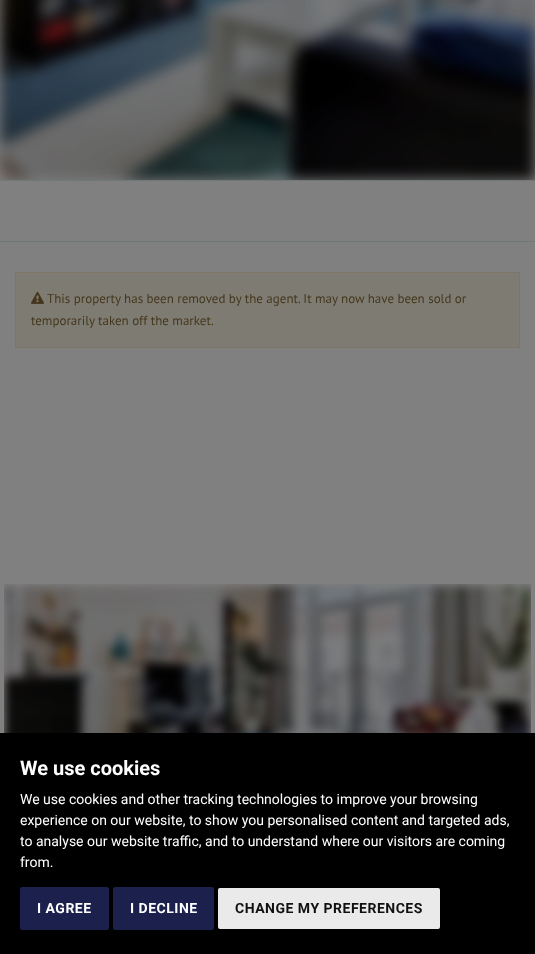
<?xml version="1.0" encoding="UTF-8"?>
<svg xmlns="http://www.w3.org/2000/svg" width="535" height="954">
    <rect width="100%" height="100%" fill="#808080"/>
    <image x="0" y="0" width="535" height="180" href="img_01.png"/>
    <rect x="0" y="180" width="535" height="1" fill="#707777"/>
    <rect x="0" y="241" width="535" height="1" fill="#707777"/>
    <rect x="15.5" y="272.5" width="504" height="75" fill="#7E7C72" stroke="#7D7666"/>
    <image x="31" y="291" width="13" height="13" href="img_02.png"/>
    <text x="47" y="303" font-family="PT Sans" font-size="13" fill="#45371E">This property has been removed by the agent. It may now have been sold or</text>
    <text x="31" y="325" font-family="PT Sans" font-size="13" fill="#45371E">temporarily taken off the market.</text>
    <image x="4" y="584" width="527" height="149" href="img_03.png"/>
    <rect x="0" y="733" width="535" height="221" fill="#000000"/>
    <text x="20" y="775" font-family="Roboto" font-size="20" font-weight="700" fill="#FFFFFF">We use cookies</text>
    <text font-family="Roboto" font-size="14" fill="#FFFFFF">
        <tspan x="20" y="804">We use cookies and other tracking technologies to improve your browsing</tspan>
        <tspan x="20" y="825">experience on our website, to show you personalised content and targeted ads,</tspan>
        <tspan x="20" y="846">to analyse our website traffic, and to understand where our visitors are coming</tspan>
        <tspan x="20" y="867">from.</tspan>
    </text>
    <rect x="20" y="887" width="89" height="43" rx="2" fill="#1B214C"/>
    <text x="37" y="913" font-family="Roboto" font-size="14" font-weight="700" letter-spacing="0.5" fill="#FFFFFF">I AGREE</text>
    <rect x="113" y="887" width="101" height="43" rx="2" fill="#1B214C"/>
    <text x="130" y="913" font-family="Roboto" font-size="14" font-weight="700" letter-spacing="0.5" fill="#FFFFFF">I DECLINE</text>
    <rect x="218" y="888" width="222" height="41" rx="2" fill="#EAEAEA"/>
    <text x="235" y="913" font-family="Roboto" font-size="14" font-weight="700" letter-spacing="0.5" fill="#111111">CHANGE MY PREFERENCES</text>
</svg>
